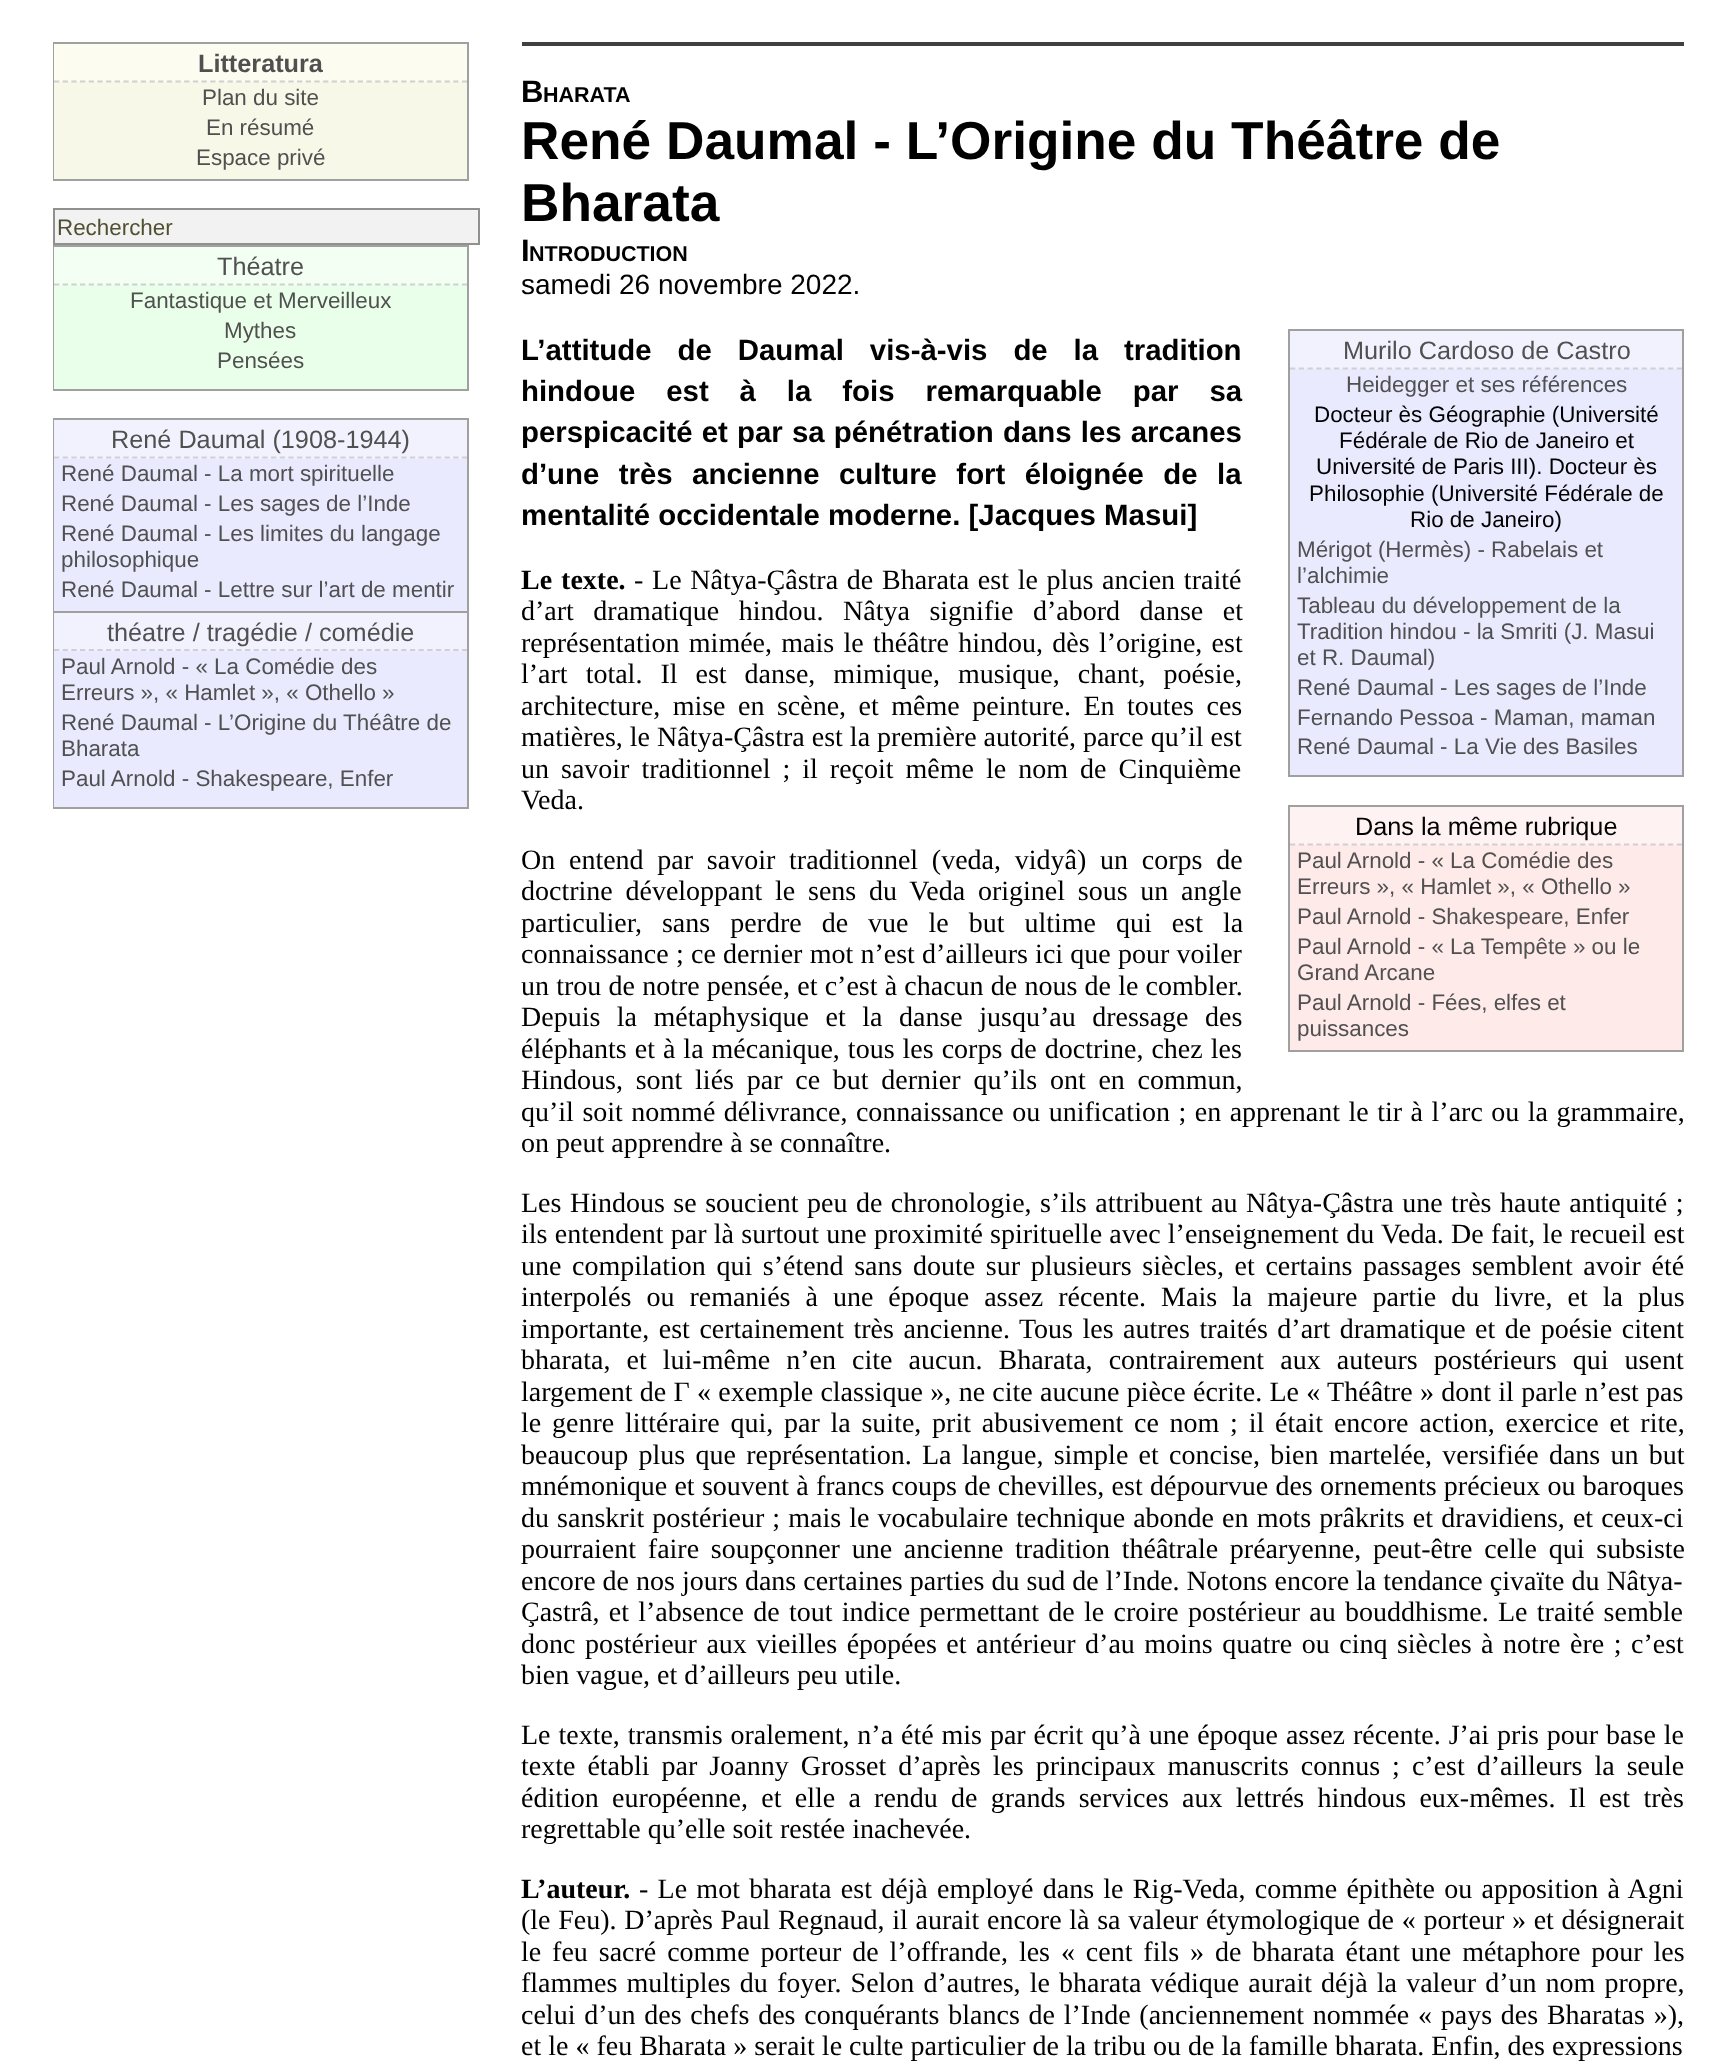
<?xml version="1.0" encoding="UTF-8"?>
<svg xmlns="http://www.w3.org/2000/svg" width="1735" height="2068">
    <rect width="100%" height="100%" fill="#FFFFFF"/>
    <rect x="467" y="42" width="2" height="138" fill="#A0A0A0"/>
    <rect x="53" y="179" width="416" height="2" fill="#A0A0A0"/>
    <rect x="53" y="42" width="2" height="138" fill="#A0A0A0"/>
    <rect x="54" y="82" width="413" height="97" fill="#F8F8E8"/>
    <rect x="54" y="44" width="413" height="38" fill="#FCFCF0"/>
    <rect x="54" y="42" width="413" height="2" fill="#A0A0A0"/>
    <path d="M 54 81.5 H 467" fill="none" stroke="#D0D0D0" stroke-width="1.8" stroke-dasharray="5.25 3.43"/>
    <text x="198" y="72" font-family="Liberation Sans" font-size="25.25" font-weight="700" fill="#505050">Litteratura</text>
    <text x="202" y="105" font-family="Liberation Sans" font-size="22.4" fill="#505050">Plan du site</text>
    <text x="206" y="135" font-family="Liberation Sans" font-size="22.4" fill="#505050">En résumé</text>
    <text x="196" y="165" font-family="Liberation Sans" font-size="22.4" fill="#505050">Espace privé</text>
    <rect x="54" y="209" width="425" height="35" fill="#F2F2F2" stroke="#909090" stroke-width="2"/>
    <text x="57" y="235" font-family="Liberation Sans" font-size="22.4" fill="#505030">Rechercher</text>
    <rect x="467" y="245" width="2" height="145" fill="#A0A0A0"/>
    <rect x="53" y="389" width="416" height="2" fill="#A0A0A0"/>
    <rect x="53" y="245" width="2" height="145" fill="#A0A0A0"/>
    <rect x="54" y="285" width="413" height="104" fill="#EAFFEA"/>
    <rect x="54" y="247" width="413" height="38" fill="#F2FFF2"/>
    <rect x="54" y="245" width="413" height="2" fill="#A0A0A0"/>
    <path d="M 54 284.5 H 467" fill="none" stroke="#D0D0D0" stroke-width="1.8" stroke-dasharray="5.25 3.43"/>
    <text x="217" y="275" font-family="Liberation Sans" font-size="25.25" fill="#505050">Théatre</text>
    <text x="130" y="308" font-family="Liberation Sans" font-size="22.4" fill="#505050">Fantastique et Merveilleux</text>
    <text x="224" y="338" font-family="Liberation Sans" font-size="22.4" fill="#505050">Mythes</text>
    <text x="217" y="368" font-family="Liberation Sans" font-size="22.4" fill="#505050">Pensées</text>
    <rect x="467" y="418" width="2" height="391" fill="#A0A0A0"/>
    <rect x="53" y="807" width="416" height="2" fill="#A0A0A0"/>
    <rect x="53" y="418" width="2" height="391" fill="#A0A0A0"/>
    <rect x="54" y="459" width="413" height="348" fill="#EAEAFF"/>
    <rect x="54" y="420" width="413" height="39" fill="#F2F2FF"/>
    <rect x="54" y="418" width="413" height="2" fill="#A0A0A0"/>
    <path d="M 54 457.5 H 467" fill="none" stroke="#D0D0D0" stroke-width="1.8" stroke-dasharray="5.25 3.43"/>
    <text x="111" y="448" font-family="Liberation Sans" font-size="25.25" fill="#505050">René Daumal (1908-1944)</text>
    <text font-family="Liberation Sans" font-size="22.4" fill="#505050">
        <tspan x="61" y="481">René Daumal - La mort spirituelle</tspan>
        <tspan x="61" y="511">René Daumal - Les sages de l’Inde</tspan>
        <tspan x="61" y="541">René Daumal - Les limites du langage</tspan>
        <tspan x="61" y="567">philosophique</tspan>
        <tspan x="61" y="597">René Daumal - Lettre sur l’art de mentir</tspan>
    </text>
    <rect x="54" y="613" width="413" height="38" fill="#F2F2FF"/>
    <rect x="54" y="611" width="413" height="2" fill="#A0A0A0"/>
    <path d="M 54 650 H 467" fill="none" stroke="#D0D0D0" stroke-width="1.8" stroke-dasharray="5.25 3.43"/>
    <text x="107" y="641" font-family="Liberation Sans" font-size="25.25" fill="#505050">théatre / tragédie / comédie</text>
    <text font-family="Liberation Sans" font-size="22.4" fill="#505050">
        <tspan x="61" y="674">Paul Arnold - « La Comédie des</tspan>
        <tspan x="61" y="700">Erreurs », « Hamlet », « Othello »</tspan>
        <tspan x="61" y="730">René Daumal - L’Origine du Théâtre de</tspan>
        <tspan x="61" y="756">Bharata</tspan>
        <tspan x="61" y="786">Paul Arnold - Shakespeare, Enfer</tspan>
    </text>
    <rect x="522" y="42" width="1162" height="4" fill="#404040"/>
    <text x="521" y="102" font-family="Liberation Sans" font-size="31" font-weight="700" fill="#000000">B</text>
    <text x="543" y="102" font-family="Liberation Sans" font-size="21.5" font-weight="700" fill="#000000">HARATA</text>
    <text font-family="Liberation Sans" font-size="53.25" font-weight="700" fill="#000000">
        <tspan x="521" y="159">René Daumal - L’Origine du Théâtre de</tspan>
        <tspan x="521" y="221">Bharata</tspan>
    </text>
    <text x="521" y="261" font-family="Liberation Sans" font-size="31" font-weight="700" fill="#000000">I</text>
    <text x="529" y="261" font-family="Liberation Sans" font-size="21.5" font-weight="700" fill="#000000">NTRODUCTION</text>
    <text x="521" y="294" font-family="Liberation Sans" font-size="28" fill="#000000">samedi 26 novembre 2022.</text>
    <text font-family="Liberation Sans" font-size="29.4" font-weight="700" fill="#000000">
        <tspan x="521" y="360" word-spacing="17.75">L’attitude de Daumal vis-à-vis de la tradition</tspan>
        <tspan x="521" y="401" word-spacing="22.75">hindoue est à la fois remarquable par sa</tspan>
        <tspan x="521" y="442" word-spacing="1">perspicacité et par sa pénétration dans les arcanes</tspan>
        <tspan x="521" y="484" word-spacing="11.25">d’une très ancienne culture fort éloignée de la</tspan>
        <tspan x="521" y="525">mentalité occidentale moderne. [Jacques Masui]</tspan>
    </text>
    <rect x="1682" y="329" width="2" height="448" fill="#A0A0A0"/>
    <rect x="1288" y="775" width="396" height="2" fill="#A0A0A0"/>
    <rect x="1288" y="329" width="2" height="448" fill="#A0A0A0"/>
    <rect x="1290" y="369" width="392" height="406" fill="#EAEAFF"/>
    <rect x="1290" y="331" width="392" height="38" fill="#F2F2FF"/>
    <rect x="1290" y="329" width="392" height="2" fill="#A0A0A0"/>
    <path d="M 1290 368.5 H 1682" fill="none" stroke="#D0D0D0" stroke-width="1.8" stroke-dasharray="5.25 3.54"/>
    <text x="1343" y="359" font-family="Liberation Sans" font-size="25.25" fill="#505050">Murilo Cardoso de Castro</text>
    <text x="1346" y="392" font-family="Liberation Sans" font-size="22.4" fill="#505050">Heidegger et ses références</text>
    <text x="1314" y="422" font-family="Liberation Sans" font-size="22.4" fill="#000000">Docteur ès Géographie (Université</text>
    <text x="1339" y="448" font-family="Liberation Sans" font-size="22.4" fill="#000000">Fédérale de Rio de Janeiro et</text>
    <text x="1316" y="474" font-family="Liberation Sans" font-size="22.4" fill="#000000">Université de Paris III). Docteur ès</text>
    <text x="1309" y="501" font-family="Liberation Sans" font-size="22.4" fill="#000000">Philosophie (Université Fédérale de</text>
    <text x="1410" y="527" font-family="Liberation Sans" font-size="22.4" fill="#000000">Rio de Janeiro)</text>
    <text font-family="Liberation Sans" font-size="22.4" fill="#505050">
        <tspan x="1297" y="557">Mérigot (Hermès) - Rabelais et</tspan>
        <tspan x="1297" y="583">l’alchimie</tspan>
        <tspan x="1297" y="613">Tableau du développement de la</tspan>
        <tspan x="1297" y="639">Tradition hindou - la Smriti (J. Masui</tspan>
        <tspan x="1297" y="665">et R. Daumal)</tspan>
        <tspan x="1297" y="695">René Daumal - Les sages de l’Inde</tspan>
        <tspan x="1297" y="725">Fernando Pessoa - Maman, maman</tspan>
        <tspan x="1297" y="754">René Daumal - La Vie des Basiles</tspan>
    </text>
    <rect x="1682" y="805" width="2" height="247" fill="#A0A0A0"/>
    <rect x="1288" y="1050" width="396" height="2" fill="#A0A0A0"/>
    <rect x="1288" y="805" width="2" height="247" fill="#A0A0A0"/>
    <rect x="1290" y="845" width="392" height="205" fill="#FFEAEA"/>
    <rect x="1290" y="807" width="392" height="38" fill="#FFF2F2"/>
    <rect x="1290" y="805" width="392" height="2" fill="#A0A0A0"/>
    <path d="M 1290 844.5 H 1682" fill="none" stroke="#D0D0D0" stroke-width="1.8" stroke-dasharray="5.25 3.54"/>
    <text x="1355" y="835" font-family="Liberation Sans" font-size="25.25" fill="#000000">Dans la même rubrique</text>
    <text font-family="Liberation Sans" font-size="22.4" fill="#505050">
        <tspan x="1297" y="868">Paul Arnold - « La Comédie des</tspan>
        <tspan x="1297" y="894">Erreurs », « Hamlet », « Othello »</tspan>
        <tspan x="1297" y="924">Paul Arnold - Shakespeare, Enfer</tspan>
        <tspan x="1297" y="954">Paul Arnold - « La Tempête » ou le</tspan>
        <tspan x="1297" y="980">Grand Arcane</tspan>
        <tspan x="1297" y="1010">Paul Arnold - Fées, elfes et</tspan>
        <tspan x="1297" y="1036">puissances</tspan>
    </text>
    <text x="521" y="589" word-spacing="2" font-family="Liberation Serif" font-size="28" font-weight="700" fill="#000000">Le texte.</text>
    <text x="634" y="589" word-spacing="1.75" font-family="Liberation Serif" font-size="28" fill="#000000">- Le Nâtya-Çâstra de Bharata est le plus ancien traité</text>
    <text font-family="Liberation Serif" font-size="28" fill="#000000">
        <tspan x="521" y="620" word-spacing="12.5">d’art dramatique hindou. Nâtya signifie d’abord danse et</tspan>
        <tspan x="521" y="652" word-spacing="2.25">représentation mimée, mais le théâtre hindou, dès l’origine, est</tspan>
        <tspan x="521" y="683" word-spacing="11">l’art total. Il est danse, mimique, musique, chant, poésie,</tspan>
        <tspan x="521" y="715" word-spacing="5.5">architecture, mise en scène, et même peinture. En toutes ces</tspan>
        <tspan x="521" y="746">matières, le Nâtya-Çâstra est la première autorité, parce qu’il est</tspan>
        <tspan x="521" y="778" word-spacing="5">un savoir traditionnel ; il reçoit même le nom de Cinquième</tspan>
        <tspan x="521" y="809">Veda.</tspan>
    </text>
    <text font-family="Liberation Serif" font-size="28" fill="#000000">
        <tspan x="521" y="869" word-spacing="6.75">On entend par savoir traditionnel (veda, vidyâ) un corps de</tspan>
        <tspan x="521" y="900" word-spacing="5.75">doctrine développant le sens du Veda originel sous un angle</tspan>
        <tspan x="521" y="932" word-spacing="13">particulier, sans perdre de vue le but ultime qui est la</tspan>
        <tspan x="521" y="963" word-spacing="0.25">connaissance ; ce dernier mot n’est d’ailleurs ici que pour voiler</tspan>
        <tspan x="521" y="995" word-spacing="0.2">un trou de notre pensée, et c’est à chacun de nous de le combler.</tspan>
        <tspan x="521" y="1026" word-spacing="9.5">Depuis la métaphysique et la danse jusqu’au dressage des</tspan>
        <tspan x="521" y="1058" word-spacing="1">éléphants et à la mécanique, tous les corps de doctrine, chez les</tspan>
        <tspan x="521" y="1089" word-spacing="5.75">Hindous, sont liés par ce but dernier qu’ils ont en commun,</tspan>
        <tspan x="521" y="1121" word-spacing="1.5">qu’il soit nommé délivrance, connaissance ou unification ; en apprenant le tir à l’arc ou la grammaire,</tspan>
        <tspan x="521" y="1152">on peut apprendre à se connaître.</tspan>
    </text>
    <text font-family="Liberation Serif" font-size="28" fill="#000000">
        <tspan x="521" y="1212" word-spacing="1.5">Les Hindous se soucient peu de chronologie, s’ils attribuent au Nâtya-Çâstra une très haute antiquité ;</tspan>
        <tspan x="521" y="1243" word-spacing="0.25">ils entendent par là surtout une proximité spirituelle avec l’enseignement du Veda. De fait, le recueil est</tspan>
        <tspan x="521" y="1275" word-spacing="3.6">une compilation qui s’étend sans doute sur plusieurs siècles, et certains passages semblent avoir été</tspan>
        <tspan x="521" y="1306" word-spacing="8">interpolés ou remaniés à une époque assez récente. Mais la majeure partie du livre, et la plus</tspan>
        <tspan x="521" y="1338" word-spacing="2.5">importante, est certainement très ancienne. Tous les autres traités d’art dramatique et de poésie citent</tspan>
        <tspan x="521" y="1369" word-spacing="9.1">bharata, et lui-même n’en cite aucun. Bharata, contrairement aux auteurs postérieurs qui usent</tspan>
        <tspan x="521" y="1401" word-spacing="0.3">largement de Γ « exemple classique », ne cite aucune pièce écrite. Le « Théâtre » dont il parle n’est pas</tspan>
        <tspan x="521" y="1432" word-spacing="3.75">le genre littéraire qui, par la suite, prit abusivement ce nom ; il était encore action, exercice et rite,</tspan>
        <tspan x="521" y="1464" word-spacing="3.25">beaucoup plus que représentation. La langue, simple et concise, bien martelée, versifiée dans un but</tspan>
        <tspan x="521" y="1495" word-spacing="0.25">mnémonique et souvent à francs coups de chevilles, est dépourvue des ornements précieux ou baroques</tspan>
        <tspan x="521" y="1527" word-spacing="1.1">du sanskrit postérieur ; mais le vocabulaire technique abonde en mots prâkrits et dravidiens, et ceux-ci</tspan>
        <tspan x="521" y="1558" word-spacing="4.75">pourraient faire soupçonner une ancienne tradition théâtrale préaryenne, peut-être celle qui subsiste</tspan>
        <tspan x="521" y="1590">encore de nos jours dans certaines parties du sud de l’Inde. Notons encore la tendance çivaïte du Nâtya-</tspan>
        <tspan x="521" y="1621" word-spacing="2.25">Çastrâ, et l’absence de tout indice permettant de le croire postérieur au bouddhisme. Le traité semble</tspan>
        <tspan x="521" y="1653" word-spacing="2.5">donc postérieur aux vieilles épopées et antérieur d’au moins quatre ou cinq siècles à notre ère ; c’est</tspan>
        <tspan x="521" y="1684">bien vague, et d’ailleurs peu utile.</tspan>
    </text>
    <text font-family="Liberation Serif" font-size="28" fill="#000000">
        <tspan x="521" y="1744" word-spacing="0.9">Le texte, transmis oralement, n’a été mis par écrit qu’à une époque assez récente. J’ai pris pour base le</tspan>
        <tspan x="521" y="1775" word-spacing="5">texte établi par Joanny Grosset d’après les principaux manuscrits connus ; c’est d’ailleurs la seule</tspan>
        <tspan x="521" y="1807" word-spacing="6.25">édition européenne, et elle a rendu de grands services aux lettrés hindous eux-mêmes. Il est très</tspan>
        <tspan x="521" y="1838">regrettable qu’elle soit restée inachevée.</tspan>
    </text>
    <text x="521" y="1898" font-family="Liberation Serif" font-size="28" font-weight="700" fill="#000000">L’auteur.</text>
    <text x="639" y="1898" word-spacing="2.25" font-family="Liberation Serif" font-size="28" fill="#000000">- Le mot bharata est déjà employé dans le Rig-Veda, comme épithète ou apposition à Agni</text>
    <text font-family="Liberation Serif" font-size="28" fill="#000000">
        <tspan x="521" y="1929" word-spacing="0.7">(le Feu). D’après Paul Regnaud, il aurait encore là sa valeur étymologique de « porteur » et désignerait</tspan>
        <tspan x="521" y="1961" word-spacing="3.9">le feu sacré comme porteur de l’offrande, les « cent fils » de bharata étant une métaphore pour les</tspan>
        <tspan x="521" y="1992" word-spacing="2.1">flammes multiples du foyer. Selon d’autres, le bharata védique aurait déjà la valeur d’un nom propre,</tspan>
        <tspan x="521" y="2024" word-spacing="1.75">celui d’un des chefs des conquérants blancs de l’Inde (anciennement nommée « pays des Bharatas »),</tspan>
        <tspan x="521" y="2055">et le « feu Bharata » serait le culte particulier de la tribu ou de la famille bharata. Enfin, des expressions</tspan>
    </text>
</svg>
